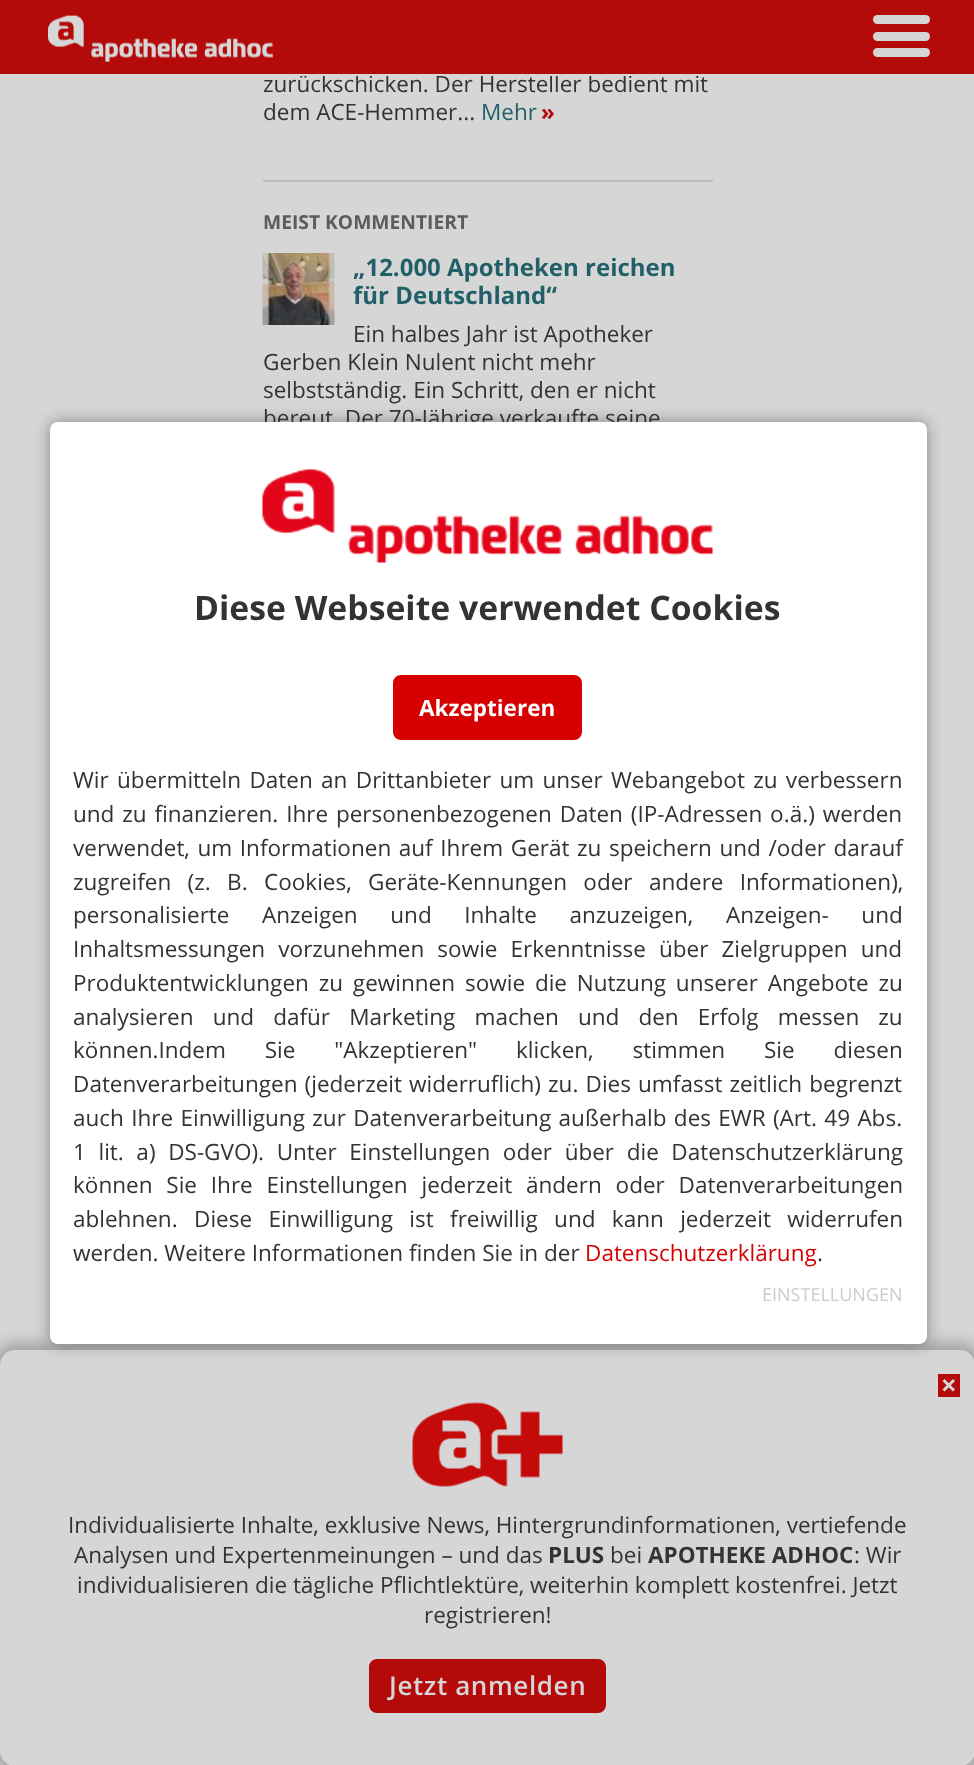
<?xml version="1.0" encoding="UTF-8"?>
<svg xmlns="http://www.w3.org/2000/svg" width="974" height="1765">
    <defs>
        <filter id="blur1" x="-50%" y="-200%" width="200%" height="500%"><feGaussianBlur stdDeviation="7.5"/></filter>
    </defs>
    <rect width="100%" height="100%" fill="#D6D6D6"/>
    <rect x="0" y="0" width="974" height="74" fill="#B50A0A"/>
    <text x="263" y="92" font-family="Open Sans" font-size="22.5" fill="#333333">zurückschicken. Der Hersteller bedient mit</text>
    <rect x="300" y="74" width="398" height="2" fill="#D6D6D6"/>
    <image x="47" y="15" width="226" height="47" href="img_01.png"/>
    <rect x="873" y="15" width="57" height="9" rx="4.5" fill="#D6D6D6"/>
    <rect x="873" y="32" width="57" height="9" rx="4.5" fill="#D6D6D6"/>
    <rect x="873" y="48" width="57" height="9" rx="4.5" fill="#D6D6D6"/>
    <rect x="263" y="180" width="450" height="2" fill="#BBBBBB"/>
    <text x="263" y="120" font-family="Open Sans" font-size="22.5" fill="#333333">dem ACE-Hemmer...</text>
    <text x="481" y="120" font-family="Open Sans" font-size="22.5" fill="#216069">Mehr</text>
    <text x="541" y="120" font-family="Open Sans" font-size="22.5" font-weight="700" fill="#B50A0A">»</text>
    <text x="263" y="229" font-family="Open Sans" font-size="19.25" font-weight="700" fill="#5C5C5C">MEIST KOMMENTIERT</text>
    <image x="262" y="253" width="73" height="72" href="img_02.png"/>
    <text font-family="Open Sans" font-size="24" font-weight="700" fill="#216069">
        <tspan x="353" y="276">„12.000 Apotheken reichen</tspan>
        <tspan x="353" y="304">für Deutschland“</tspan>
    </text>
    <text x="353" y="342" font-family="Open Sans" font-size="22.5" fill="#333333">Ein halbes Jahr ist Apotheker</text>
    <text font-family="Open Sans" font-size="22.5" fill="#333333">
        <tspan x="263" y="370">Gerben Klein Nulent nicht mehr</tspan>
        <tspan x="263" y="398">selbstständig. Ein Schritt, den er nicht</tspan>
        <tspan x="263" y="426">bereut. Der 70-Jährige verkaufte seine</tspan>
    </text>
    <rect x="-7" y="1343" width="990" height="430" rx="23" fill="#0A0A0A" fill-opacity="0.25" filter="url(#blur1)"/>
    <rect x="0" y="1350" width="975" height="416" rx="15" fill="#D6D6D6"/>
    <rect x="938" y="1374" width="22" height="23" fill="#B50A0A"/>
    <path d="M 943.5 1380 L 954 1390.5 M 954 1380 L 943.5 1390.5" fill="none" stroke="#D6D6D6" stroke-width="3"/>
    <image x="412" y="1402" width="151" height="85" href="img_03.png"/>
    <text x="68" y="1533" font-family="Open Sans" font-size="22.5" fill="#333333">Individualisierte Inhalte, exklusive News, Hintergrundinformationen, vertiefende</text>
    <text x="74" y="1563" font-family="Open Sans" font-size="22.5" fill="#333333">Analysen und Expertenmeinungen – und das</text>
    <text x="548" y="1563" font-family="Open Sans" font-size="22.5" font-weight="700" fill="#333333">PLUS</text>
    <text x="610" y="1563" font-family="Open Sans" font-size="22.5" fill="#333333">bei</text>
    <text x="648" y="1563" font-family="Open Sans" font-size="22.5" font-weight="700" fill="#333333">APOTHEKE ADHOC</text>
    <text x="854" y="1563" font-family="Open Sans" font-size="22.5" fill="#333333">: Wir</text>
    <text x="77" y="1593" font-family="Open Sans" font-size="22.5" fill="#333333">individualisieren die tägliche Pflichtlektüre, weiterhin komplett kostenfrei. Jetzt</text>
    <text x="424" y="1623" font-family="Open Sans" font-size="22.5" fill="#333333">registrieren!</text>
    <rect x="370" y="1660" width="235" height="52" rx="7" fill="#B50A0A" stroke="#B50A0A" stroke-width="2"/>
    <text x="389" y="1695" font-family="Open Sans" font-size="26" font-weight="600" letter-spacing="0.6" fill="#D6D6D6">Jetzt anmelden</text>
    <rect x="50" y="422" width="877" height="922" rx="8" fill="#333333" fill-opacity="0.5" filter="url(#blur1)"/>
    <rect x="50" y="422" width="877" height="922" rx="8" fill="#FFFFFF"/>
    <image x="262" y="469" width="451" height="94" href="img_04.png"/>
    <text x="194" y="620" font-family="Open Sans" font-size="33.75" font-weight="700" fill="#333333">Diese Webseite verwendet Cookies</text>
    <rect x="394.5" y="676.5" width="186" height="62" rx="6.5" fill="#D70000" stroke="#D70000" stroke-width="3"/>
    <text x="419" y="716" font-family="Open Sans" font-size="22.5" font-weight="700" fill="#FFFFFF">Akzeptieren</text>
    <text font-family="Open Sans" font-size="22.5" fill="#333333">
        <tspan x="73" y="788" word-spacing="2.5">Wir übermitteln Daten an Drittanbieter um unser Webangebot zu verbessern</tspan>
        <tspan x="73" y="822" word-spacing="2">und zu finanzieren. Ihre personenbezogenen Daten (IP-Adressen o.ä.) werden</tspan>
        <tspan x="73" y="856" word-spacing="1.75">verwendet, um Informationen auf Ihrem Gerät zu speichern und /oder darauf</tspan>
        <tspan x="73" y="890" word-spacing="10.5">zugreifen (z. B. Cookies, Geräte-Kennungen oder andere Informationen),</tspan>
        <tspan x="73" y="923" word-spacing="26.75">personalisierte Anzeigen und Inhalte anzuzeigen, Anzeigen- und</tspan>
        <tspan x="73" y="957" word-spacing="7.25">Inhaltsmessungen vorzunehmen sowie Erkenntnisse über Zielgruppen und</tspan>
        <tspan x="73" y="991" word-spacing="4">Produktentwicklungen zu gewinnen sowie die Nutzung unserer Angebote zu</tspan>
        <tspan x="73" y="1025" word-spacing="13.25">analysieren und dafür Marketing machen und den Erfolg messen zu</tspan>
        <tspan x="73" y="1058" word-spacing="33">können.Indem Sie "Akzeptieren" klicken, stimmen Sie diesen</tspan>
        <tspan x="73" y="1092" word-spacing="1.25">Datenverarbeitungen (jederzeit widerruflich) zu. Dies umfasst zeitlich begrenzt</tspan>
        <tspan x="73" y="1126" word-spacing="1.5">auch Ihre Einwilligung zur Datenverarbeitung außerhalb des EWR (Art. 49 Abs.</tspan>
        <tspan x="73" y="1160" word-spacing="6.75">1 lit. a) DS-GVO). Unter Einstellungen oder über die Datenschutzerklärung</tspan>
        <tspan x="73" y="1193" word-spacing="8">können Sie Ihre Einstellungen jederzeit ändern oder Datenverarbeitungen</tspan>
        <tspan x="73" y="1227" word-spacing="10.5">ablehnen. Diese Einwilligung ist freiwillig und kann jederzeit widerrufen</tspan>
        <tspan x="73" y="1261">werden. Weitere Informationen finden Sie in der</tspan>
    </text>
    <text x="585" y="1261" font-family="Open Sans" font-size="22.5" fill="#D70000">Datenschutzerklärung</text>
    <text x="817" y="1261" font-family="Open Sans" font-size="22.5" fill="#333333">.</text>
    <text x="762" y="1301" font-family="Open Sans" font-size="18" fill="#CCCCCC">EINSTELLUNGEN</text>
</svg>
